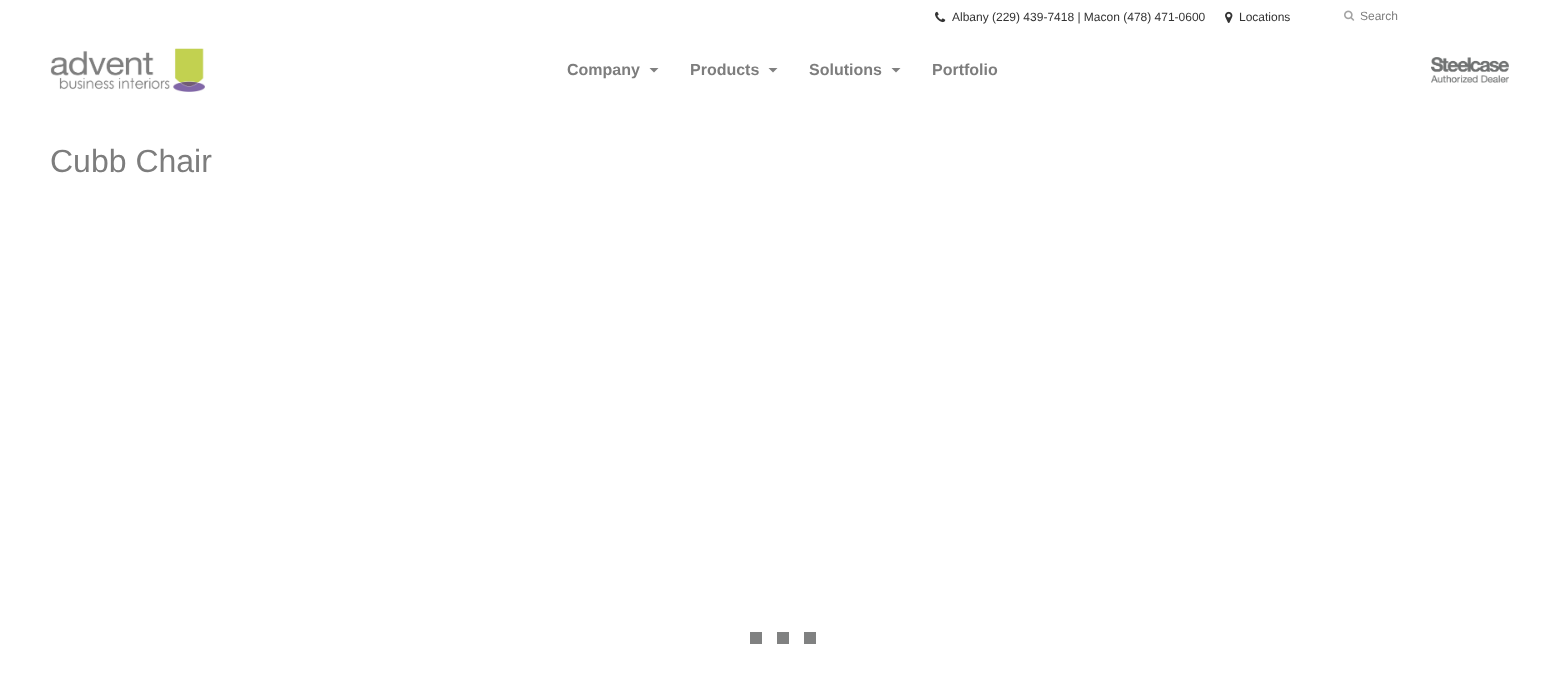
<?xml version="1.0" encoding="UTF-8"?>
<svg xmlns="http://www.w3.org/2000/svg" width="1565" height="674">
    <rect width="100%" height="100%" fill="#FFFFFF"/>
    <image x="935" y="11" width="11" height="12" href="img_01.png"/>
    <text x="952" y="21" font-family="Liberation Sans" font-size="12" fill="#333333">Albany (229) 439-7418 | Macon (478) 471-0600</text>
    <image x="1225" y="11" width="8" height="12" href="img_02.png"/>
    <text x="1239" y="21" font-family="Liberation Sans" font-size="12" fill="#333333">Locations</text>
    <image x="1344" y="10" width="11" height="11" href="img_03.png"/>
    <text x="1360" y="20" font-family="Liberation Sans" font-size="12" fill="#7D7D7D">Search</text>
    <image x="50" y="48" width="155" height="44" href="img_04.png"/>
    <text x="567" y="75" font-family="Liberation Sans" font-size="16" font-weight="700" fill="#7D7D7D">Company</text>
    <path d="M 649.5 68 L 654 72.5 L 658.5 68 Z" fill="#808080"/>
    <text x="690" y="75" font-family="Liberation Sans" font-size="16" font-weight="700" fill="#7D7D7D">Products</text>
    <path d="M 768.5 68 L 773 72.5 L 777.5 68 Z" fill="#808080"/>
    <text x="809" y="75" font-family="Liberation Sans" font-size="16" font-weight="700" fill="#7D7D7D">Solutions</text>
    <path d="M 891.5 68 L 896 72.5 L 900.5 68 Z" fill="#808080"/>
    <text x="932" y="75" font-family="Liberation Sans" font-size="16" font-weight="700" fill="#7D7D7D">Portfolio</text>
    <image x="1431" y="57" width="78" height="26" href="img_05.png"/>
    <text x="50" y="172" font-family="Liberation Sans" font-size="32" fill="#7D7D7D">Cubb Chair</text>
    <rect x="750" y="632" width="12" height="12" fill="#808181"/>
    <rect x="777" y="632" width="12" height="12" fill="#808181"/>
    <rect x="804" y="632" width="12" height="12" fill="#808181"/>
</svg>
